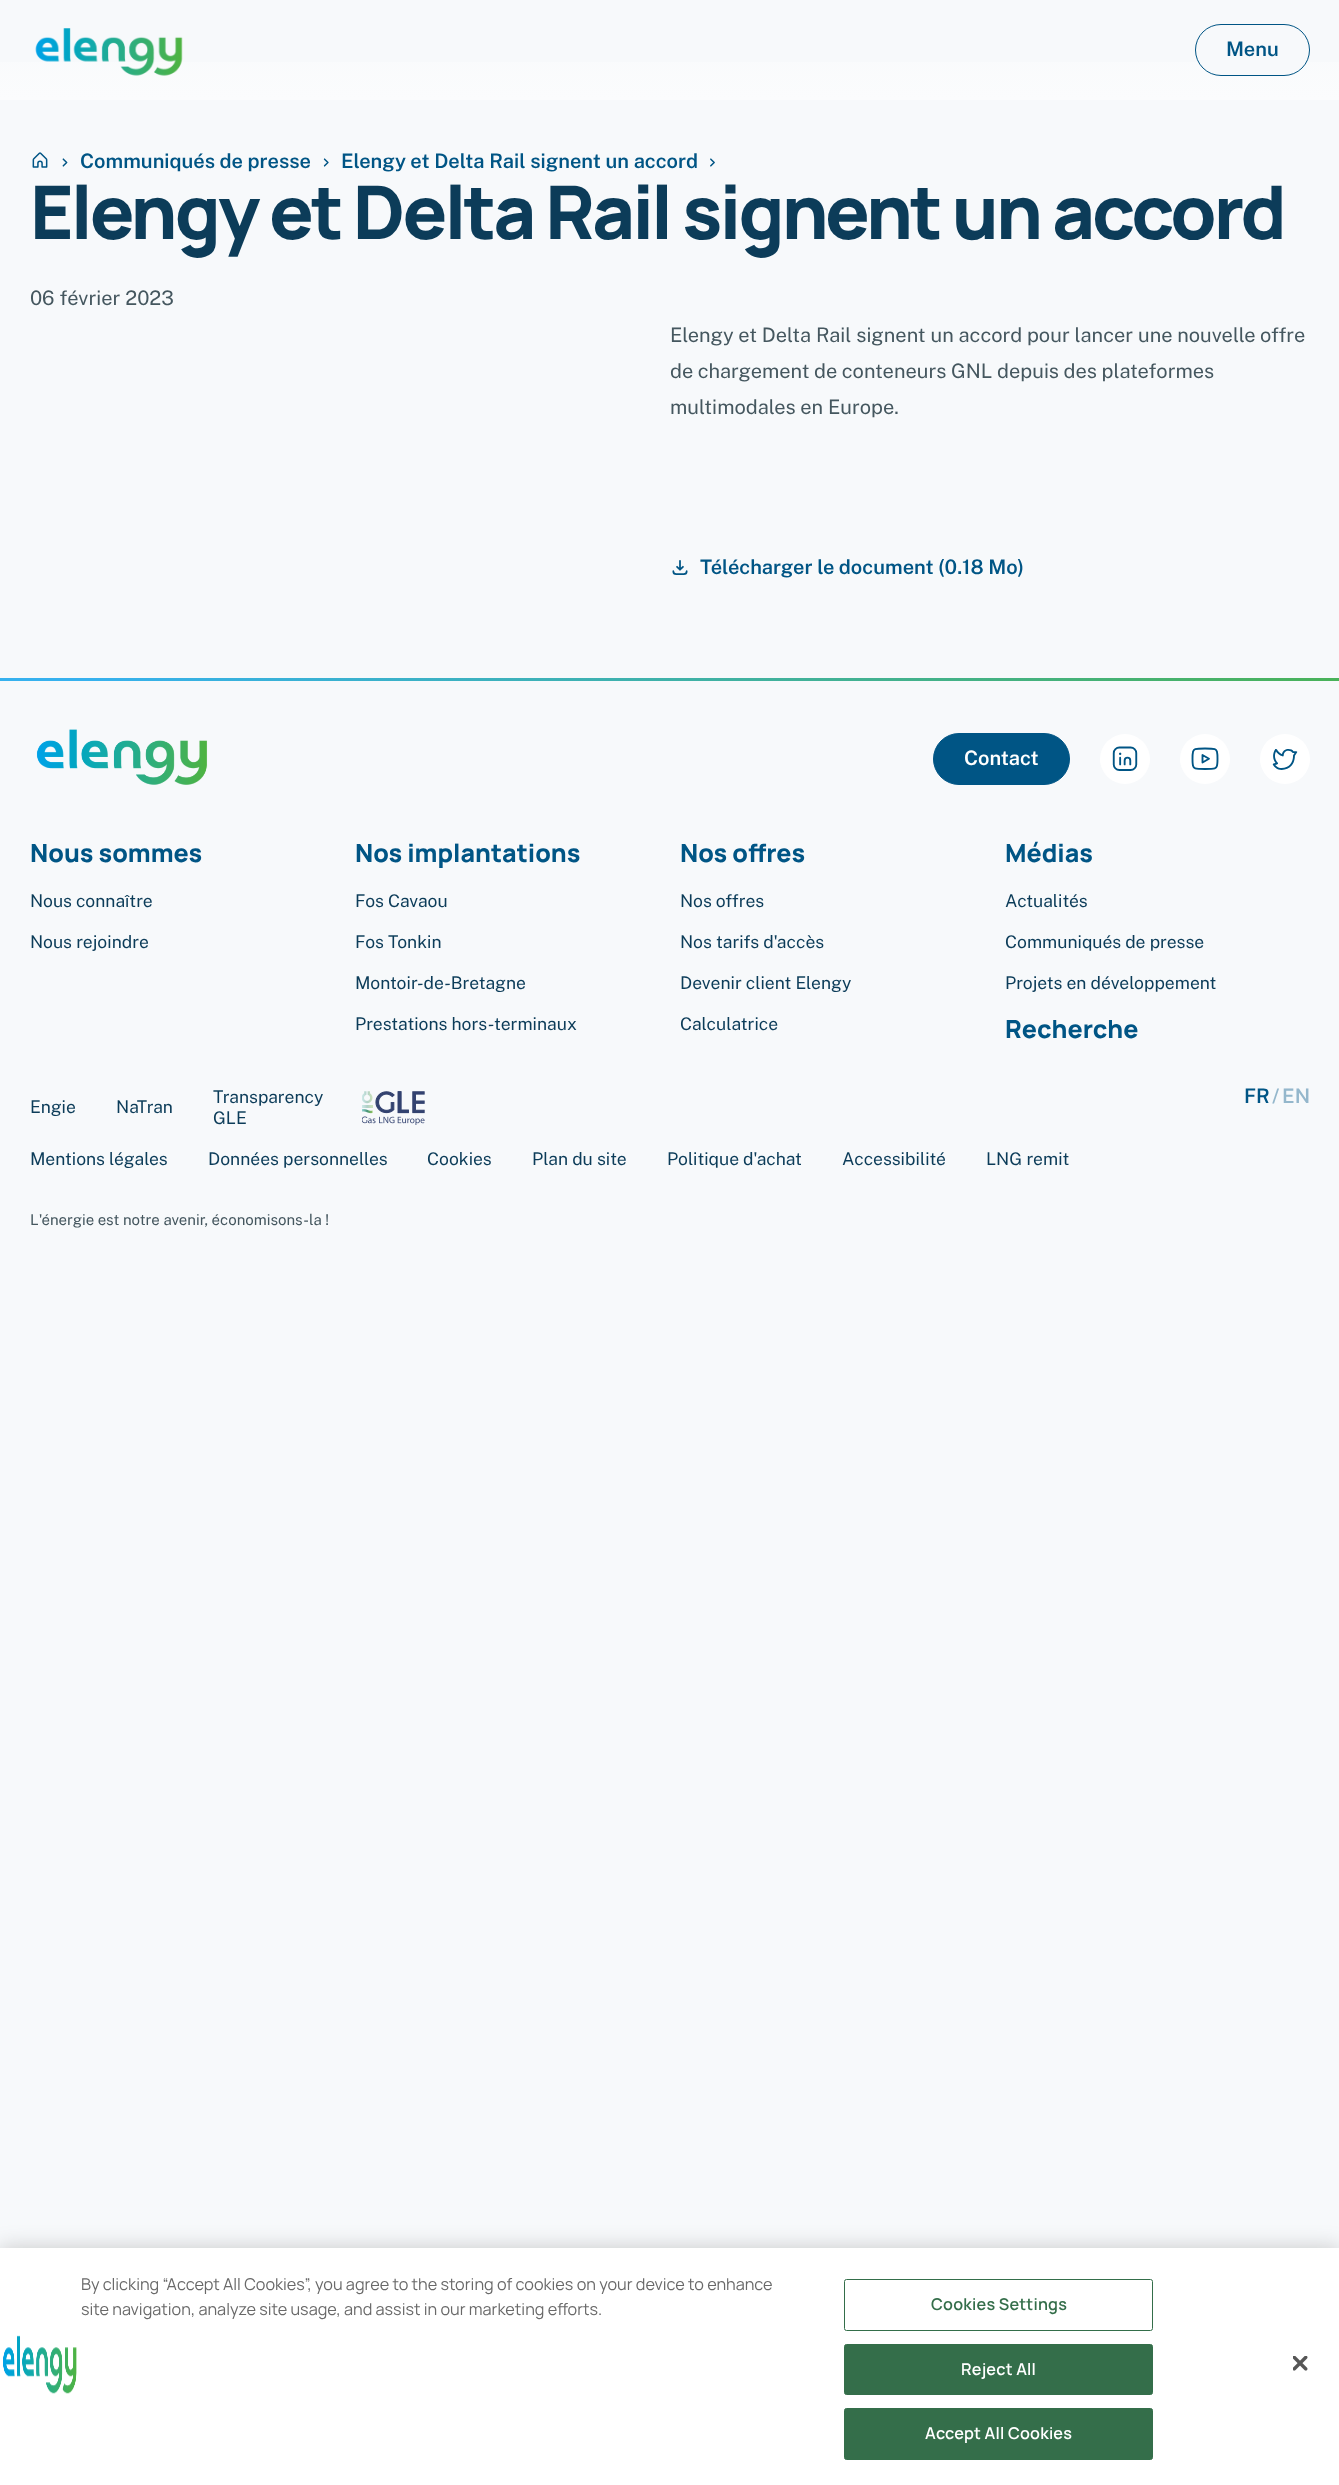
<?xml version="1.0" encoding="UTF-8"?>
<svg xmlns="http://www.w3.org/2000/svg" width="1339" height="2485">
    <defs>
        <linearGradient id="g1" gradientUnits="userSpaceOnUse" x1="670" y1="0" x2="670" y2="100"><stop offset="0" stop-color="#F7F9FB"/><stop offset="1" stop-color="#FBFCFD"/></linearGradient>
        <linearGradient id="g2" gradientUnits="userSpaceOnUse" x1="332" y1="343" x2="1070" y2="1076"><stop offset="0.06" stop-color="#36B1EE"/><stop offset="1" stop-color="#4BB24A"/></linearGradient>
        <filter id="blur1" x="-50%" y="-200%" width="200%" height="500%"><feGaussianBlur stdDeviation="11"/></filter>
    </defs>
    <rect width="100%" height="100%" fill="#F7F9FB"/>
    <rect x="0" y="62" width="1339" height="38" fill="url(#g1)"/>
    <image x="35" y="28" width="148" height="48" href="img_01.png"/>
    <rect x="1195.5" y="24.5" width="114" height="51" rx="25.5" fill="#F7F9FB" stroke="#005585"/>
    <text x="1226" y="56" font-family="Public Sans" font-size="20" font-weight="600" fill="#005585">Menu</text>
    <image x="32" y="152" width="16" height="16" href="img_02.png"/>
    <image x="62" y="158" width="6" height="9" href="img_03.png"/>
    <text x="80" y="168" font-family="Public Sans" font-size="20" font-weight="600" fill="#005585">Communiqués de presse</text>
    <image x="323" y="158" width="6" height="9" href="img_04.png"/>
    <text x="341" y="168" font-family="Public Sans" font-size="20" font-weight="600" fill="#005585">Elengy et Delta Rail signent un accord</text>
    <image x="710" y="158" width="5" height="9" href="img_05.png"/>
    <text x="30" y="239" font-family="Manrope" font-size="74" font-weight="800" letter-spacing="-2.95" fill="#0C3C59">Elengy et Delta Rail signent un accord</text>
    <text x="30" y="305" font-family="Public Sans" font-size="20" fill="#45575F">06 février 2023</text>
    <text font-family="Public Sans" font-size="20" fill="#45575F">
        <tspan x="670" y="342">Elengy et Delta Rail signent un accord pour lancer une nouvelle offre</tspan>
        <tspan x="670" y="378">de chargement de conteneurs GNL depuis des plateformes</tspan>
        <tspan x="670" y="414">multimodales en Europe.</tspan>
    </text>
    <image x="672" y="560" width="16" height="15" href="img_06.png"/>
    <text x="700" y="574" font-family="Public Sans" font-size="20" font-weight="600" fill="#005585">Télécharger le document (0.18 Mo)</text>
    <rect x="0" y="678" width="1339" height="3" fill="url(#g2)"/>
    <image x="36" y="729" width="172" height="56" href="img_07.png"/>
    <rect x="933.5" y="733.5" width="136" height="51" rx="25.5" fill="#005585" stroke="#005585"/>
    <text x="964" y="765" font-family="Public Sans" font-size="20" font-weight="600" fill="#FFFFFF">Contact</text>
    <circle cx="1125" cy="759" r="25" fill="#FFFFFF"/>
    <image x="1112" y="746" width="26" height="25" href="img_08.png"/>
    <circle cx="1205" cy="759" r="25" fill="#FFFFFF"/>
    <image x="1191" y="747" width="28" height="23" href="img_09.png"/>
    <circle cx="1285" cy="759" r="25" fill="#FFFFFF"/>
    <image x="1272" y="749" width="26" height="21" href="img_10.png"/>
    <text x="30" y="862" font-family="Manrope" font-size="25" font-weight="800" fill="#005585">Nous sommes</text>
    <text x="30" y="907" font-family="Public Sans" font-size="17.5" fill="#0C3C59">Nous connaître</text>
    <text x="30" y="948" font-family="Public Sans" font-size="17.5" fill="#0C3C59">Nous rejoindre</text>
    <text x="355" y="862" font-family="Manrope" font-size="25" font-weight="800" fill="#005585">Nos implantations</text>
    <text x="355" y="907" font-family="Public Sans" font-size="17.5" fill="#0C3C59">Fos Cavaou</text>
    <text x="355" y="948" font-family="Public Sans" font-size="17.5" fill="#0C3C59">Fos Tonkin</text>
    <text x="355" y="989" font-family="Public Sans" font-size="17.5" fill="#0C3C59">Montoir-de-Bretagne</text>
    <text x="355" y="1030" font-family="Public Sans" font-size="17.5" fill="#0C3C59">Prestations hors-terminaux</text>
    <text x="680" y="862" font-family="Manrope" font-size="25" font-weight="800" fill="#005585">Nos offres</text>
    <text x="680" y="907" font-family="Public Sans" font-size="17.5" fill="#0C3C59">Nos offres</text>
    <text x="680" y="948" font-family="Public Sans" font-size="17.5" fill="#0C3C59">Nos tarifs d'accès</text>
    <text x="680" y="989" font-family="Public Sans" font-size="17.5" fill="#0C3C59">Devenir client Elengy</text>
    <text x="680" y="1030" font-family="Public Sans" font-size="17.5" fill="#0C3C59">Calculatrice</text>
    <text x="1005" y="862" font-family="Manrope" font-size="25" font-weight="800" fill="#005585">Médias</text>
    <text x="1005" y="907" font-family="Public Sans" font-size="17.5" fill="#0C3C59">Actualités</text>
    <text x="1005" y="948" font-family="Public Sans" font-size="17.5" fill="#0C3C59">Communiqués de presse</text>
    <text x="1005" y="989" font-family="Public Sans" font-size="17.5" fill="#0C3C59">Projets en développement</text>
    <text x="1005" y="1038" font-family="Manrope" font-size="25" font-weight="800" fill="#005585">Recherche</text>
    <text x="30" y="1113" font-family="Public Sans" font-size="17.5" fill="#0C3C59">Engie</text>
    <text x="116" y="1113" font-family="Public Sans" font-size="17.5" fill="#0C3C59">NaTran</text>
    <text x="213" y="1103" font-family="Public Sans" font-size="17.5" fill="#0C3C59">Transparency</text>
    <image x="362" y="1091" width="63" height="34" href="img_11.png"/>
    <text x="213" y="1124" font-family="Public Sans" font-size="17.5" fill="#0C3C59">GLE</text>
    <text x="30" y="1165" font-family="Public Sans" font-size="17.5" fill="#0C3C59">Mentions légales</text>
    <text x="208" y="1165" font-family="Public Sans" font-size="17.5" fill="#0C3C59">Données personnelles</text>
    <text x="427" y="1165" font-family="Public Sans" font-size="17.5" fill="#0C3C59">Cookies</text>
    <text x="532" y="1165" font-family="Public Sans" font-size="17.5" fill="#0C3C59">Plan du site</text>
    <text x="667" y="1165" font-family="Public Sans" font-size="17.5" fill="#0C3C59">Politique d'achat</text>
    <text x="842" y="1165" font-family="Public Sans" font-size="17.5" fill="#0C3C59">Accessibilité</text>
    <text x="986" y="1165" font-family="Public Sans" font-size="17.5" fill="#0C3C59">LNG remit</text>
    <text x="1244" y="1103" font-family="Public Sans" font-size="20" font-weight="600" fill="#005585">FR</text>
    <text x="1272" y="1103" font-family="Public Sans" font-size="20" font-weight="600" fill="#94B7CC">/</text>
    <text x="1282" y="1103" font-family="Public Sans" font-size="20" font-weight="600" fill="#94B7CC">EN</text>
    <text x="30" y="1225" font-family="Public Sans" font-size="15" fill="#45575F">L'énergie est notre avenir, économisons-la !</text>
    <rect x="0" y="2248" width="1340" height="237" fill="#000000" fill-opacity="0.2" filter="url(#blur1)"/>
    <rect x="0" y="2248" width="1339" height="237" fill="#FFFFFF"/>
    <text font-family="Manrope" font-size="16.25" fill="#696969">
        <tspan x="81" y="2290">By clicking “Accept All Cookies”, you agree to the storing of cookies on your device to enhance</tspan>
        <tspan x="81" y="2315">site navigation, analyze site usage, and assist in our marketing efforts.</tspan>
    </text>
    <image x="3" y="2335" width="74" height="59" href="img_12.png"/>
    <rect x="844.5" y="2279.5" width="308" height="51" rx="2" fill="none" stroke="#346E4A"/>
    <text x="931" y="2310" font-family="Manrope" font-size="16.25" font-weight="600" letter-spacing="0.2" fill="#346E4A">Cookies Settings</text>
    <rect x="844.5" y="2344.5" width="308" height="50" rx="2" fill="#346E4A" stroke="#346E4A"/>
    <text x="961" y="2375" font-family="Manrope" font-size="16.25" font-weight="600" letter-spacing="0.2" fill="#FFFFFF">Reject All</text>
    <rect x="844.5" y="2408.5" width="308" height="51" rx="2" fill="#346E4A" stroke="#346E4A"/>
    <text x="925" y="2439" font-family="Manrope" font-size="16.25" font-weight="600" letter-spacing="0.2" fill="#FFFFFF">Accept All Cookies</text>
    <image x="1293" y="2356" width="15" height="15" href="img_13.png"/>
</svg>
